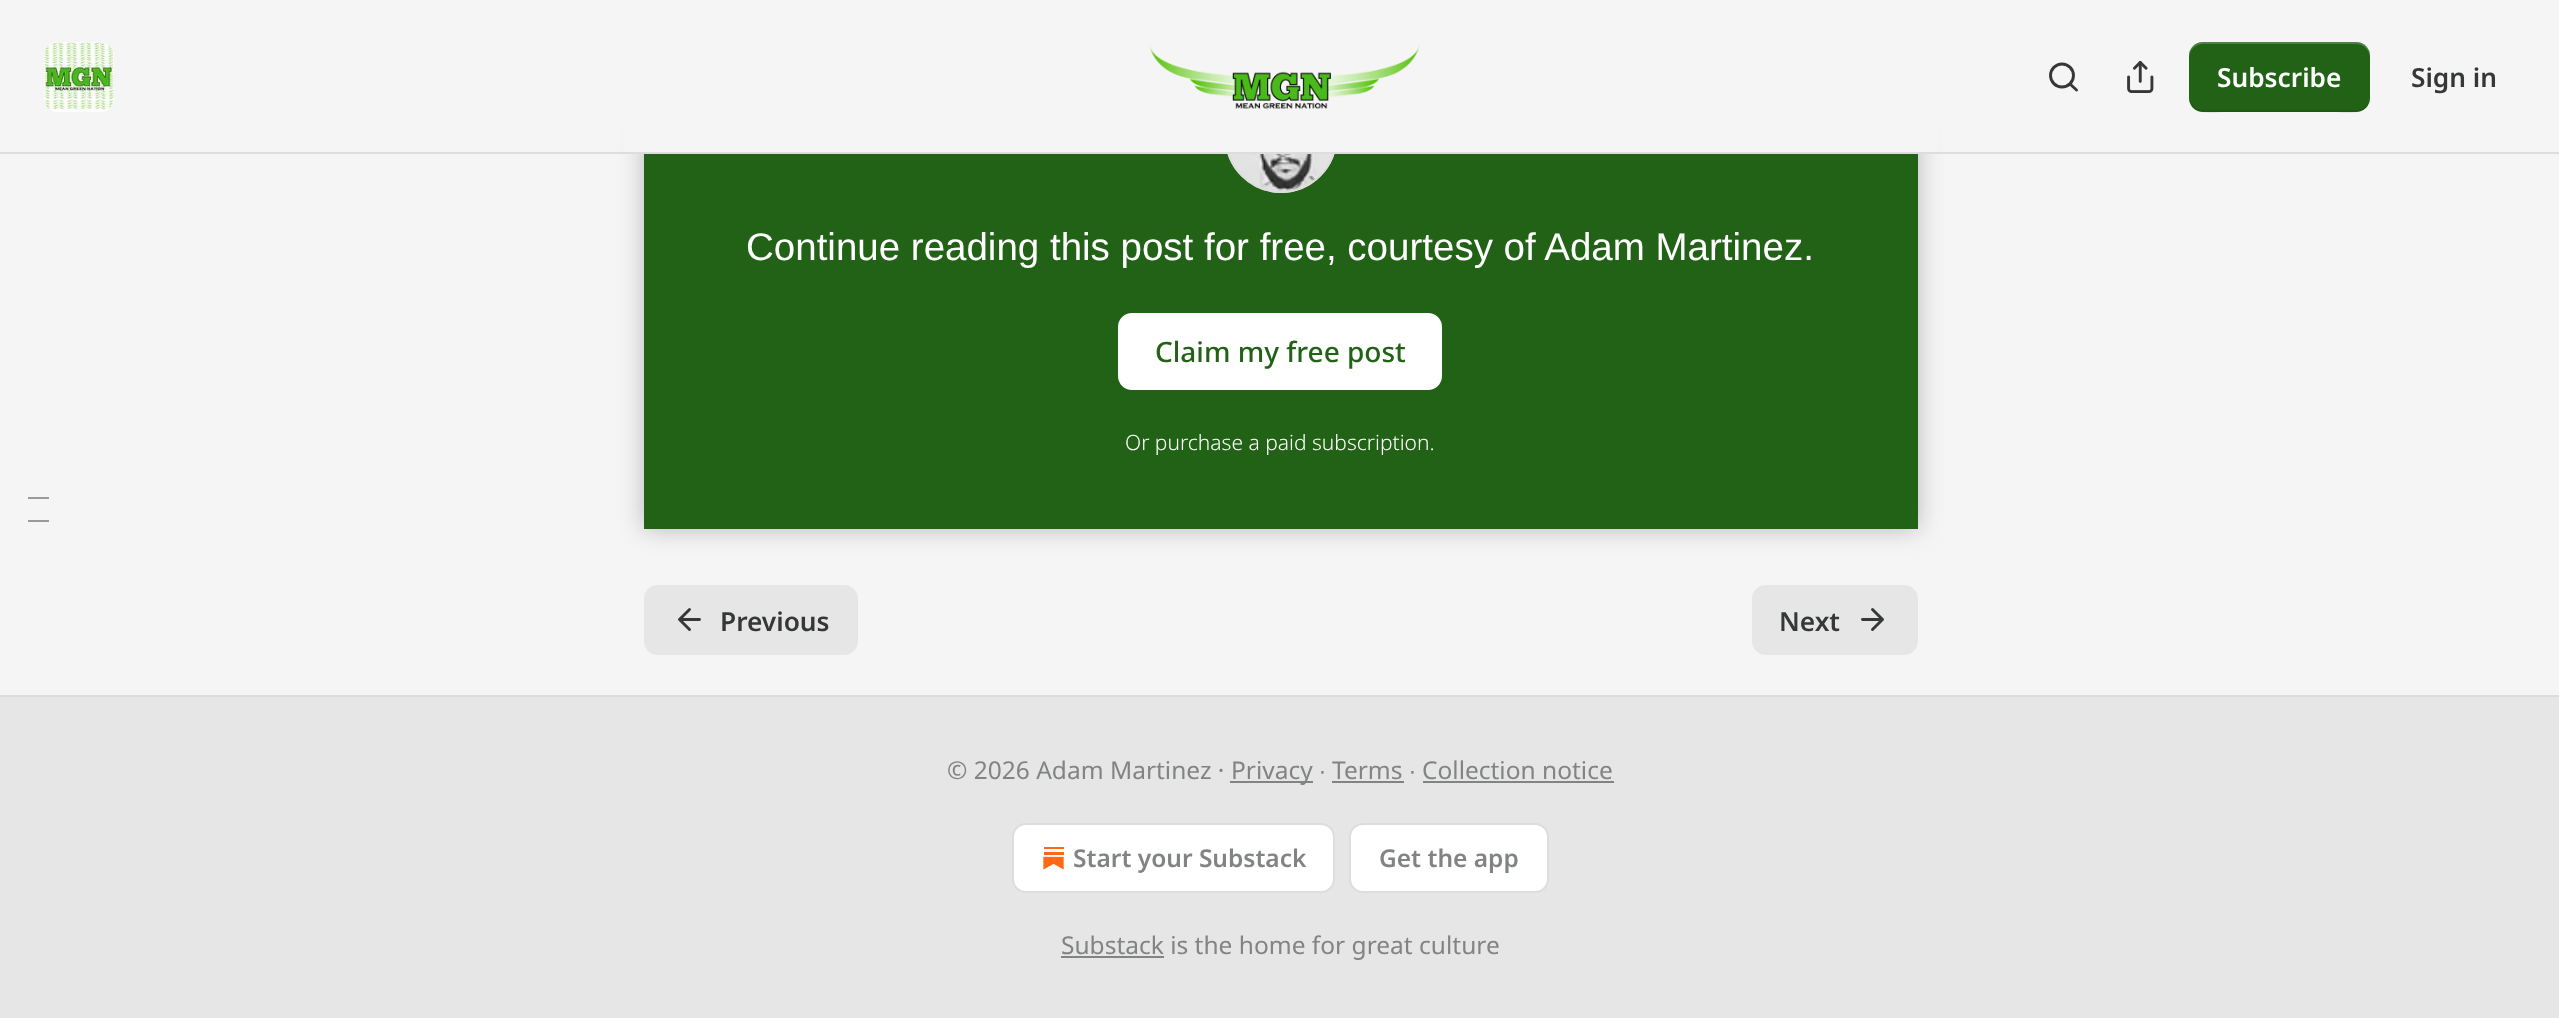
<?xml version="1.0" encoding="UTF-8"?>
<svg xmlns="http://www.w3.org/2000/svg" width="2559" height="1018">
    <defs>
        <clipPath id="clip1"><path d="M 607 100 H 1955 V 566 H 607 Z M 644 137 H 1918 V 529 H 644 Z" clip-rule="evenodd"/></clipPath>
        <filter id="blur1" x="-50%" y="-200%" width="200%" height="500%"><feGaussianBlur stdDeviation="12"/></filter>
    </defs>
    <rect width="100%" height="100%" fill="#F5F5F5"/>
    <rect x="644" y="154" width="1274" height="375" fill="#226216"/>
    <rect x="1119" y="314" width="322" height="75" rx="13" fill="#FFFFFF" stroke="#FFFFFF" stroke-width="2"/>
    <g clip-path="url(#clip1)">
        <rect x="644" y="137" width="1274" height="392" fill="#000000" fill-opacity="0.25" filter="url(#blur1)"/>
    </g>
    <circle cx="1281" cy="137" r="55" fill="none" stroke="#DDDDDD" stroke-width="2"/>
    <image x="1228" y="154" width="106" height="37" href="img_04.png"/>
    <circle cx="1281" cy="137" r="55" fill="none" stroke="#DDDDDD" stroke-width="2"/>
    <rect x="624" y="81" width="1314" height="71" fill="#F5F5F5"/>
    <rect x="0" y="152" width="2559" height="2" fill="#DDDDDD"/>
    <rect x="44" y="42" width="70" height="70" rx="14" fill="#FFFFFF"/>
    <image x="44" y="42" width="70" height="70" href="img_01.png"/>
    <image x="1149" y="45" width="271" height="64" href="img_02.png"/>
    <circle cx="2062" cy="75.5" r="11.5" fill="none" stroke="#363737" stroke-width="2.9"/>
    <path d="M 2076.5 90 L 2070 84" fill="none" stroke="#363737" stroke-width="2.9" stroke-linecap="round" stroke-linejoin="round"/>
    <image x="2127" y="61" width="27" height="32" href="img_03.png"/>
    <rect x="2189" y="42" width="181" height="70" rx="14" fill="#226216"/>
    <path d="M 2189 96 C 2189 118 2214 112 2228 112 H 2330 C 2345 112 2370 118 2370 96 C 2370 104 2363 110 2356 110 H 2203 C 2196 110 2189 104 2189 96 Z" fill="#000000" fill-opacity="0.1"/>
    <path d="M 2203 44 H 2356 C 2363 44 2370 50 2370 58 C 2370 36 2345 42 2330 42 H 2228 C 2214 42 2189 36 2189 58 C 2189 50 2196 44 2203 44 Z" fill="#FFFFFF" fill-opacity="0.2"/>
    <text x="2217" y="87" font-family="Noto Sans" font-size="26.25" font-weight="600" fill="#FFFFFF">Subscribe</text>
    <text x="2411" y="87" font-family="Noto Sans" font-size="26.25" font-weight="600" fill="#363737">Sign in</text>
    <text x="746" y="260" font-family="Liberation Sans" font-size="38.5" fill="#FFFFFF">Continue reading this post for free, courtesy of Adam Martinez.</text>
    <text x="1155" y="362" font-family="Noto Sans" font-size="28" font-weight="500" fill="#226216">Claim my free post</text>
    <text x="1125" y="450" font-family="Noto Sans" font-size="21" font-weight="300" fill="#FFFFFF">Or purchase a paid subscription.</text>
    <rect x="28" y="497" width="21" height="2" fill="#999A9A"/>
    <rect x="28" y="520" width="21" height="2" fill="#999A9A"/>
    <rect x="644" y="585" width="214" height="70" rx="14" fill="#E6E6E6"/>
    <path d="M 689.5 629.5 L 679.5 619.5 L 689.5 609.5 M 699.5 619.5 H 679.5" fill="none" stroke="#363737" stroke-width="2.9" stroke-linecap="round" stroke-linejoin="round"/>
    <text x="720" y="631" font-family="Noto Sans" font-size="26.25" font-weight="600" fill="#363737">Previous</text>
    <rect x="1752" y="585" width="166" height="70" rx="14" fill="#E6E6E6"/>
    <text x="1779" y="631" font-family="Noto Sans" font-size="26.25" font-weight="600" fill="#363737">Next</text>
    <path d="M 1862.5 619.5 H 1882.5 M 1872.5 609.5 L 1882.5 619.5 L 1872.5 629.5" fill="none" stroke="#363737" stroke-width="2.9" stroke-linecap="round" stroke-linejoin="round"/>
    <rect x="0" y="697" width="2559" height="321" fill="#E6E6E6"/>
    <rect x="0" y="695" width="2559" height="2" fill="#DDDDDD"/>
    <text x="947" y="779" font-family="Noto Sans" font-size="24.5" fill="#828383">© 2026 Adam Martinez ·</text>
    <rect x="1230" y="781" width="83" height="2" fill="#828383"/>
    <text x="1231" y="779" font-family="Noto Sans" font-size="24.5" fill="#828383">Privacy</text>
    <text x="1319" y="779" font-family="Liberation Sans" font-size="24.5" fill="#828383">∙</text>
    <text x="1332" y="779" font-family="Noto Sans" font-size="24.5" fill="#828383">Terms</text>
    <rect x="1332" y="781" width="72" height="2" fill="#828383"/>
    <text x="1409" y="779" font-family="Liberation Sans" font-size="24.5" fill="#828383">∙</text>
    <text x="1422" y="779" font-family="Noto Sans" font-size="24.5" fill="#828383">Collection notice</text>
    <rect x="1423" y="781" width="191" height="2" fill="#828383"/>
    <rect x="1013" y="824" width="321" height="68" rx="13" fill="#FFFFFF" stroke="#DDDDDD" stroke-width="2"/>
    <image x="1043" y="847" width="21" height="23" href="img_05.png"/>
    <text x="1073" y="867" font-family="Noto Sans" font-size="24.5" font-weight="600" fill="#828383">Start your Substack</text>
    <rect x="1350" y="824" width="198" height="68" rx="13" fill="#FFFFFF" stroke="#DDDDDD" stroke-width="2"/>
    <text x="1379" y="867" font-family="Noto Sans" font-size="24.5" font-weight="600" fill="#828383">Get the app</text>
    <rect x="1061" y="956" width="103" height="2" fill="#828383"/>
    <text x="1061" y="954" font-family="Noto Sans" font-size="24.5" fill="#828383">Substack is the home for great culture</text>
</svg>
